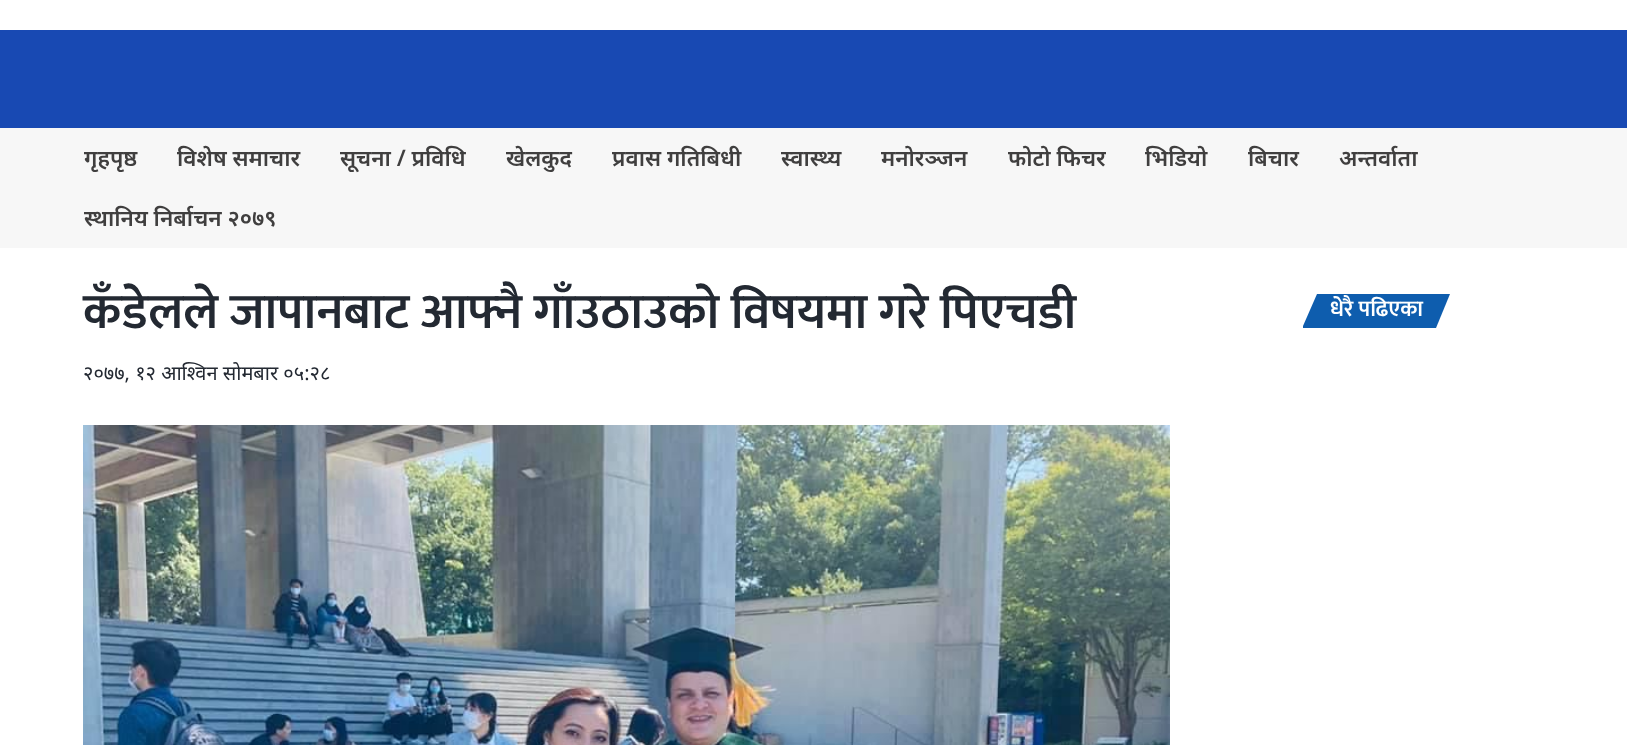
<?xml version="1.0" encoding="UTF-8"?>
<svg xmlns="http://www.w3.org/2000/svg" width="1627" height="745">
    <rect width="100%" height="100%" fill="#FFFFFF"/>
    <rect x="0" y="30" width="1627" height="98" fill="#1849B3"/>
    <rect x="0" y="128" width="1627" height="120" fill="#F7F7F7"/>
    <text x="84" y="166" font-family="Noto Sans" font-size="22.5" font-weight="600" fill="#403F3F">गृहपृष्ठ</text>
    <text x="177" y="166" font-family="Noto Sans" font-size="22.5" font-weight="600" fill="#403F3F">विशेष समाचार</text>
    <text x="340" y="166" font-family="Noto Sans" font-size="22.5" font-weight="600" fill="#403F3F">सूचना / प्रविधि</text>
    <text x="506" y="166" font-family="Noto Sans" font-size="22.5" font-weight="600" fill="#403F3F">खेलकुद</text>
    <text x="612" y="166" font-family="Noto Sans" font-size="22.5" font-weight="600" fill="#403F3F">प्रवास गतिबिधी</text>
    <text x="781" y="166" font-family="Noto Sans" font-size="22.5" font-weight="600" fill="#403F3F">स्वास्थ्य</text>
    <text x="881" y="166" font-family="Noto Sans" font-size="22.5" font-weight="600" fill="#403F3F">मनोरञ्जन</text>
    <text x="1008" y="166" font-family="Noto Sans" font-size="22.5" font-weight="600" fill="#403F3F">फोटो फिचर</text>
    <text x="1145" y="166" font-family="Noto Sans" font-size="22.5" font-weight="600" fill="#403F3F">भिडियो</text>
    <text x="1248" y="166" font-family="Noto Sans" font-size="22.5" font-weight="600" fill="#403F3F">बिचार</text>
    <text x="1339" y="166" font-family="Noto Sans" font-size="22.5" font-weight="600" fill="#403F3F">अन्तर्वाता</text>
    <text x="84" y="226" font-family="Noto Sans" font-size="22.5" font-weight="600" fill="#403F3F">स्थानिय निर्बाचन २०७९</text>
    <text x="83" y="328" font-family="Mukta" font-size="50" font-weight="600" fill="#232932">कँडेलले जापानबाट आफ्नै गाँउठाउको विषयमा गरे पिएचडी</text>
    <text x="83" y="380" font-family="Noto Sans" font-size="20" fill="#232932">२०७७, १२ आश्विन सोमबार ०५:२८</text>
    <image x="83" y="425" width="1087" height="320" href="img_01.png"/>
    <path d="M 1303 326 L 1317 294 H 1450 L 1436 328 H 1303 Z" fill="#0E5DAE"/>
    <text x="1330" y="316" font-family="Mukta" font-size="22.5" font-weight="600" fill="#FFFFFF">धेरै पढिएका</text>
</svg>
